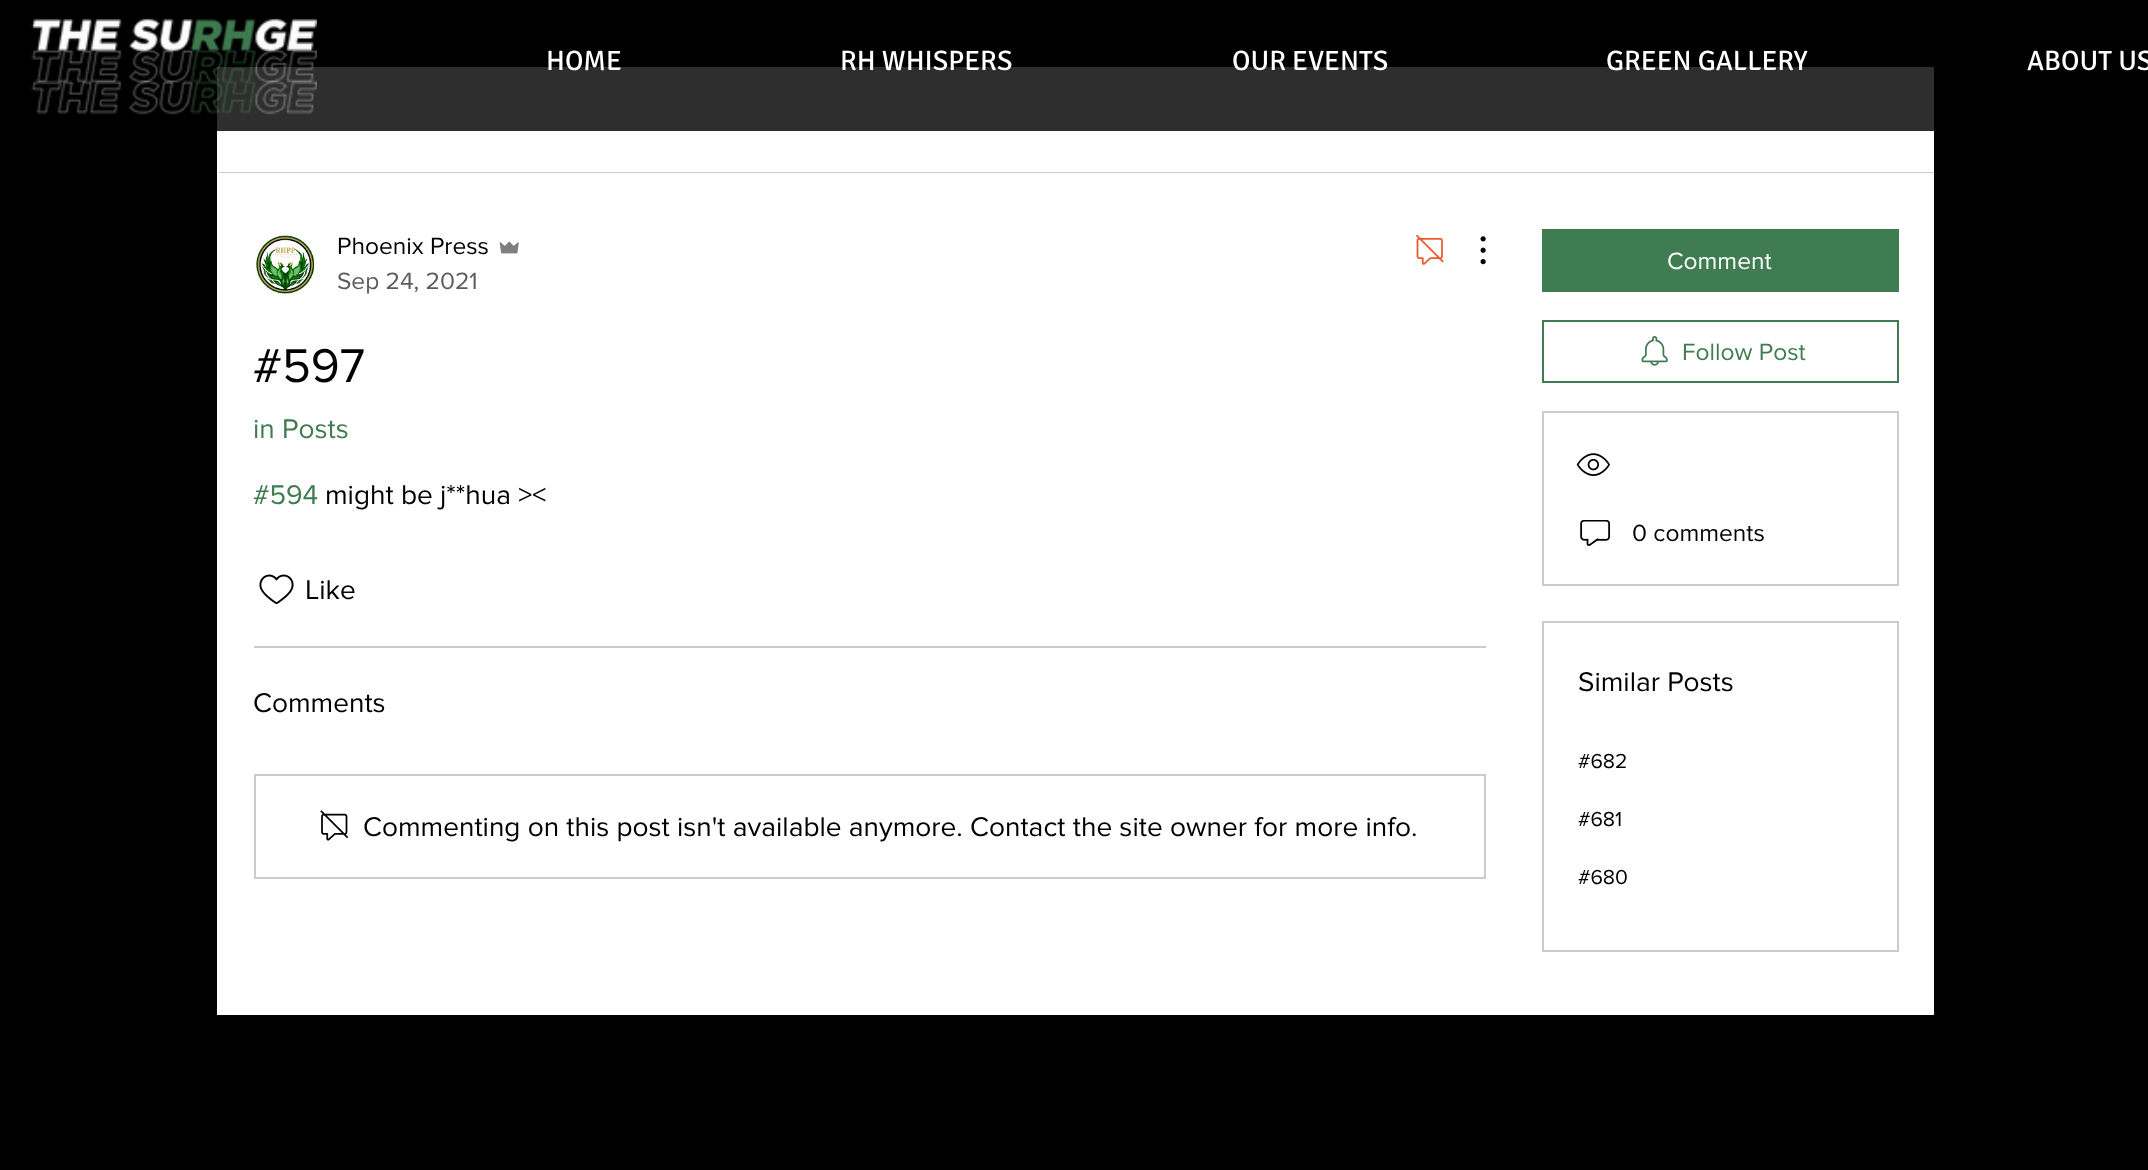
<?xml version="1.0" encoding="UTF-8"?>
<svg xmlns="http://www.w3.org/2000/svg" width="2148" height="1170">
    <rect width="100%" height="100%" fill="#000000"/>
    <rect x="217" y="67" width="1717" height="64" fill="#2E2E2E"/>
    <image x="31" y="18" width="286" height="97" href="img_01.png"/>
    <text x="546" y="70" font-family="Signika" font-size="28" fill="#FFFFFF">HOME</text>
    <text x="840" y="70" font-family="Signika" font-size="28" fill="#FFFFFF">RH WHISPERS</text>
    <text x="1232" y="70" font-family="Signika" font-size="28" fill="#FFFFFF">OUR EVENTS</text>
    <text x="1606" y="70" font-family="Signika" font-size="28" fill="#FFFFFF">GREEN GALLERY</text>
    <text x="2027" y="70" font-family="Signika" font-size="28" fill="#FFFFFF">ABOUT US</text>
    <rect x="217" y="131" width="1717" height="884" fill="#FFFFFF"/>
    <rect x="219" y="172" width="1715" height="1" fill="#CCCCCC"/>
    <image x="256" y="235" width="59" height="59" href="img_02.png"/>
    <text x="337" y="254" font-family="'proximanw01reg'" font-size="24.5" fill="#000000">Phoenix Press</text>
    <image x="499" y="241" width="20" height="13" href="img_03.png"/>
    <text x="337" y="289" font-family="'proximanw01reg'" font-size="24.5" fill="#5C5C5C">Sep 24, 2021</text>
    <image x="1416" y="235" width="28" height="30" href="img_04.png"/>
    <image x="1480" y="236" width="6" height="29" href="img_05.png"/>
    <text x="253" y="382" font-family="'proximanw01reg'" font-size="49" fill="#000000">#597</text>
    <text x="253" y="438" font-family="'proximanw01reg'" font-size="28" fill="#407C51">in Posts</text>
    <text x="253" y="504" font-family="'proximanw01reg'" font-size="28" fill="#407C51">#594</text>
    <text x="325" y="504" font-family="'proximanw01reg'" font-size="28" fill="#000000">might be j**hua &gt;&lt;</text>
    <image x="259" y="574" width="35" height="30" href="img_06.png"/>
    <text x="305" y="599" font-family="'proximanw01reg'" font-size="28" fill="#000000">Like</text>
    <rect x="254" y="646" width="1232" height="2" fill="#CCCCCC"/>
    <text x="253" y="712" font-family="'proximanw01reg'" font-size="28" fill="#000000">Comments</text>
    <rect x="255" y="775" width="1230" height="103" fill="none" stroke="#CCCCCC" stroke-width="2"/>
    <image x="320" y="810" width="28" height="31" href="img_07.png"/>
    <text x="363" y="836" font-family="'proximanw01reg'" font-size="28" fill="#000000">Commenting on this post isn't available anymore. Contact the site owner for more info.</text>
    <rect x="1542" y="229" width="357" height="63" fill="#407C51"/>
    <text x="1667" y="269" font-family="'proximanw01reg'" font-size="24.5" fill="#FFFFFF">Comment</text>
    <rect x="1543" y="321" width="355" height="61" fill="none" stroke="#407C51" stroke-width="2"/>
    <image x="1641" y="336" width="27" height="30" href="img_08.png"/>
    <text x="1682" y="360" font-family="'proximanw01reg'" font-size="24.5" fill="#407C51">Follow Post</text>
    <rect x="1543" y="412" width="355" height="173" fill="none" stroke="#CCCCCC" stroke-width="2"/>
    <image x="1576" y="453" width="34" height="23" href="img_09.png"/>
    <image x="1580" y="520" width="30" height="26" href="img_10.png"/>
    <text x="1632" y="541" font-family="'proximanw01reg'" font-size="24.5" fill="#000000">0 comments</text>
    <rect x="1543" y="622" width="355" height="329" fill="none" stroke="#CCCCCC" stroke-width="2"/>
    <text x="1578" y="691" font-family="'proximanw01reg'" font-size="28" fill="#000000">Similar Posts</text>
    <text x="1578" y="768" font-family="'proximanw01reg'" font-size="21" fill="#000000">#682</text>
    <text x="1578" y="826" font-family="'proximanw01reg'" font-size="21" fill="#000000">#681</text>
    <text x="1578" y="884" font-family="'proximanw01reg'" font-size="21" fill="#000000">#680</text>
</svg>
